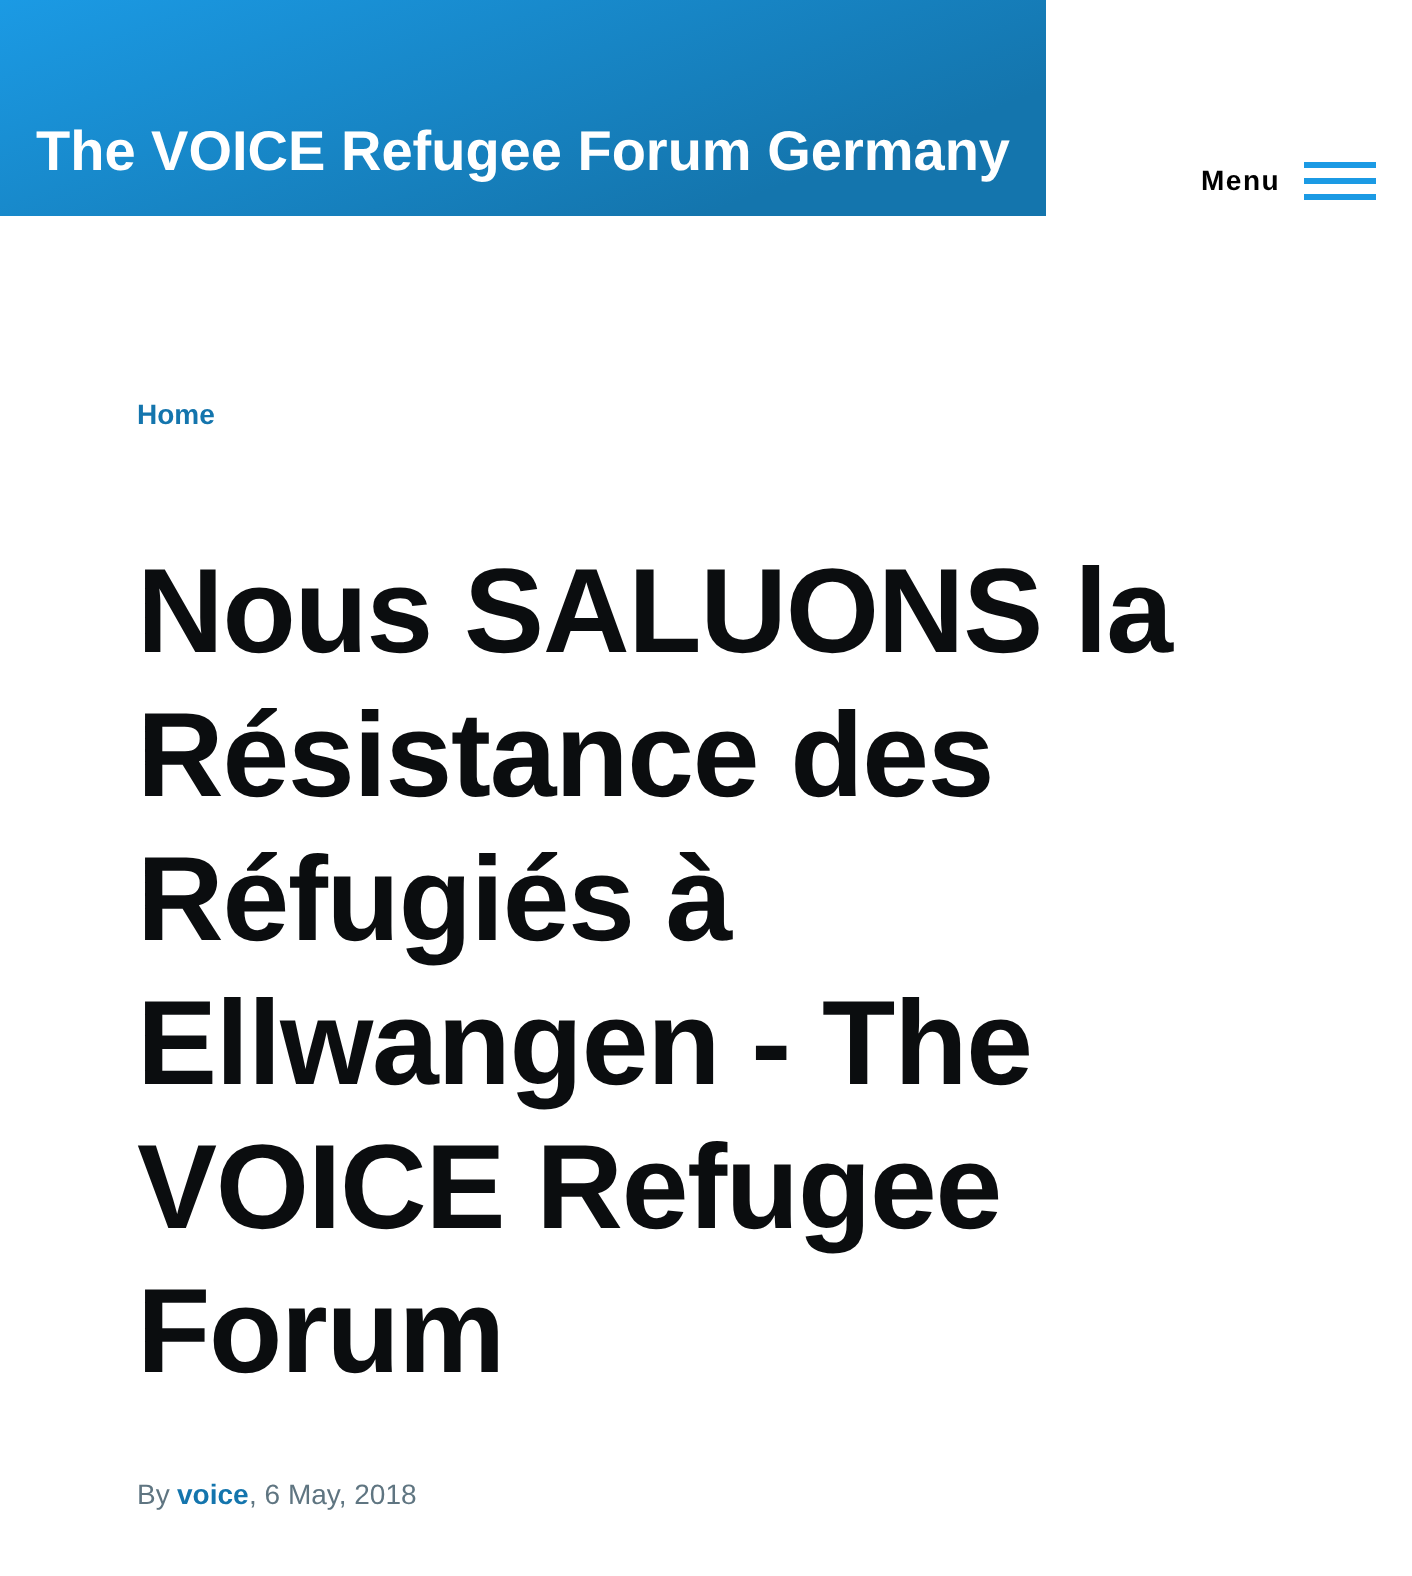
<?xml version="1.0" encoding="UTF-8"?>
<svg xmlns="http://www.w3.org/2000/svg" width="1412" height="1576">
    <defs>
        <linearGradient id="g1" gradientUnits="userSpaceOnUse" x1="427" y1="-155" x2="619" y2="371"><stop offset="0" stop-color="#1B9AE4"/><stop offset="0.79" stop-color="#1475AD"/></linearGradient>
    </defs>
    <rect width="100%" height="100%" fill="#FFFFFF"/>
    <rect x="0" y="0" width="1046" height="216" fill="url(#g1)"/>
    <text x="36" y="170" font-family="Liberation Sans" font-size="56" font-weight="700" fill="#FFFFFF">The VOICE Refugee Forum Germany</text>
    <text x="1201" y="190" font-family="Liberation Sans" font-size="28" font-weight="700" letter-spacing="1.5" fill="#000000">Menu</text>
    <rect x="1304" y="178" width="72" height="6" fill="#1B9AE4"/>
    <rect x="1304" y="162" width="72" height="6" fill="#1B9AE4"/>
    <rect x="1304" y="194" width="72" height="6" fill="#1B9AE4"/>
    <text x="137" y="424" font-family="Liberation Sans" font-size="28" font-weight="700" fill="#1475AD">Home</text>
    <text font-family="Liberation Sans" font-size="120" font-weight="700" letter-spacing="-1.25" fill="#0B0D0F">
        <tspan x="137" y="652">Nous SALUONS la</tspan>
        <tspan x="137" y="796">Résistance des</tspan>
        <tspan x="137" y="940">Réfugiés à</tspan>
        <tspan x="137" y="1084">Ellwangen - The</tspan>
        <tspan x="137" y="1228">VOICE Refugee</tspan>
        <tspan x="137" y="1372">Forum</tspan>
    </text>
    <text x="137" y="1504" font-family="Liberation Sans" font-size="28" fill="#5F7581">By</text>
    <text x="177" y="1504" font-family="Liberation Sans" font-size="28" font-weight="700" fill="#1475AD">voice</text>
    <text x="249" y="1504" font-family="Liberation Sans" font-size="28" fill="#5F7581">, 6 May, 2018</text>
</svg>
